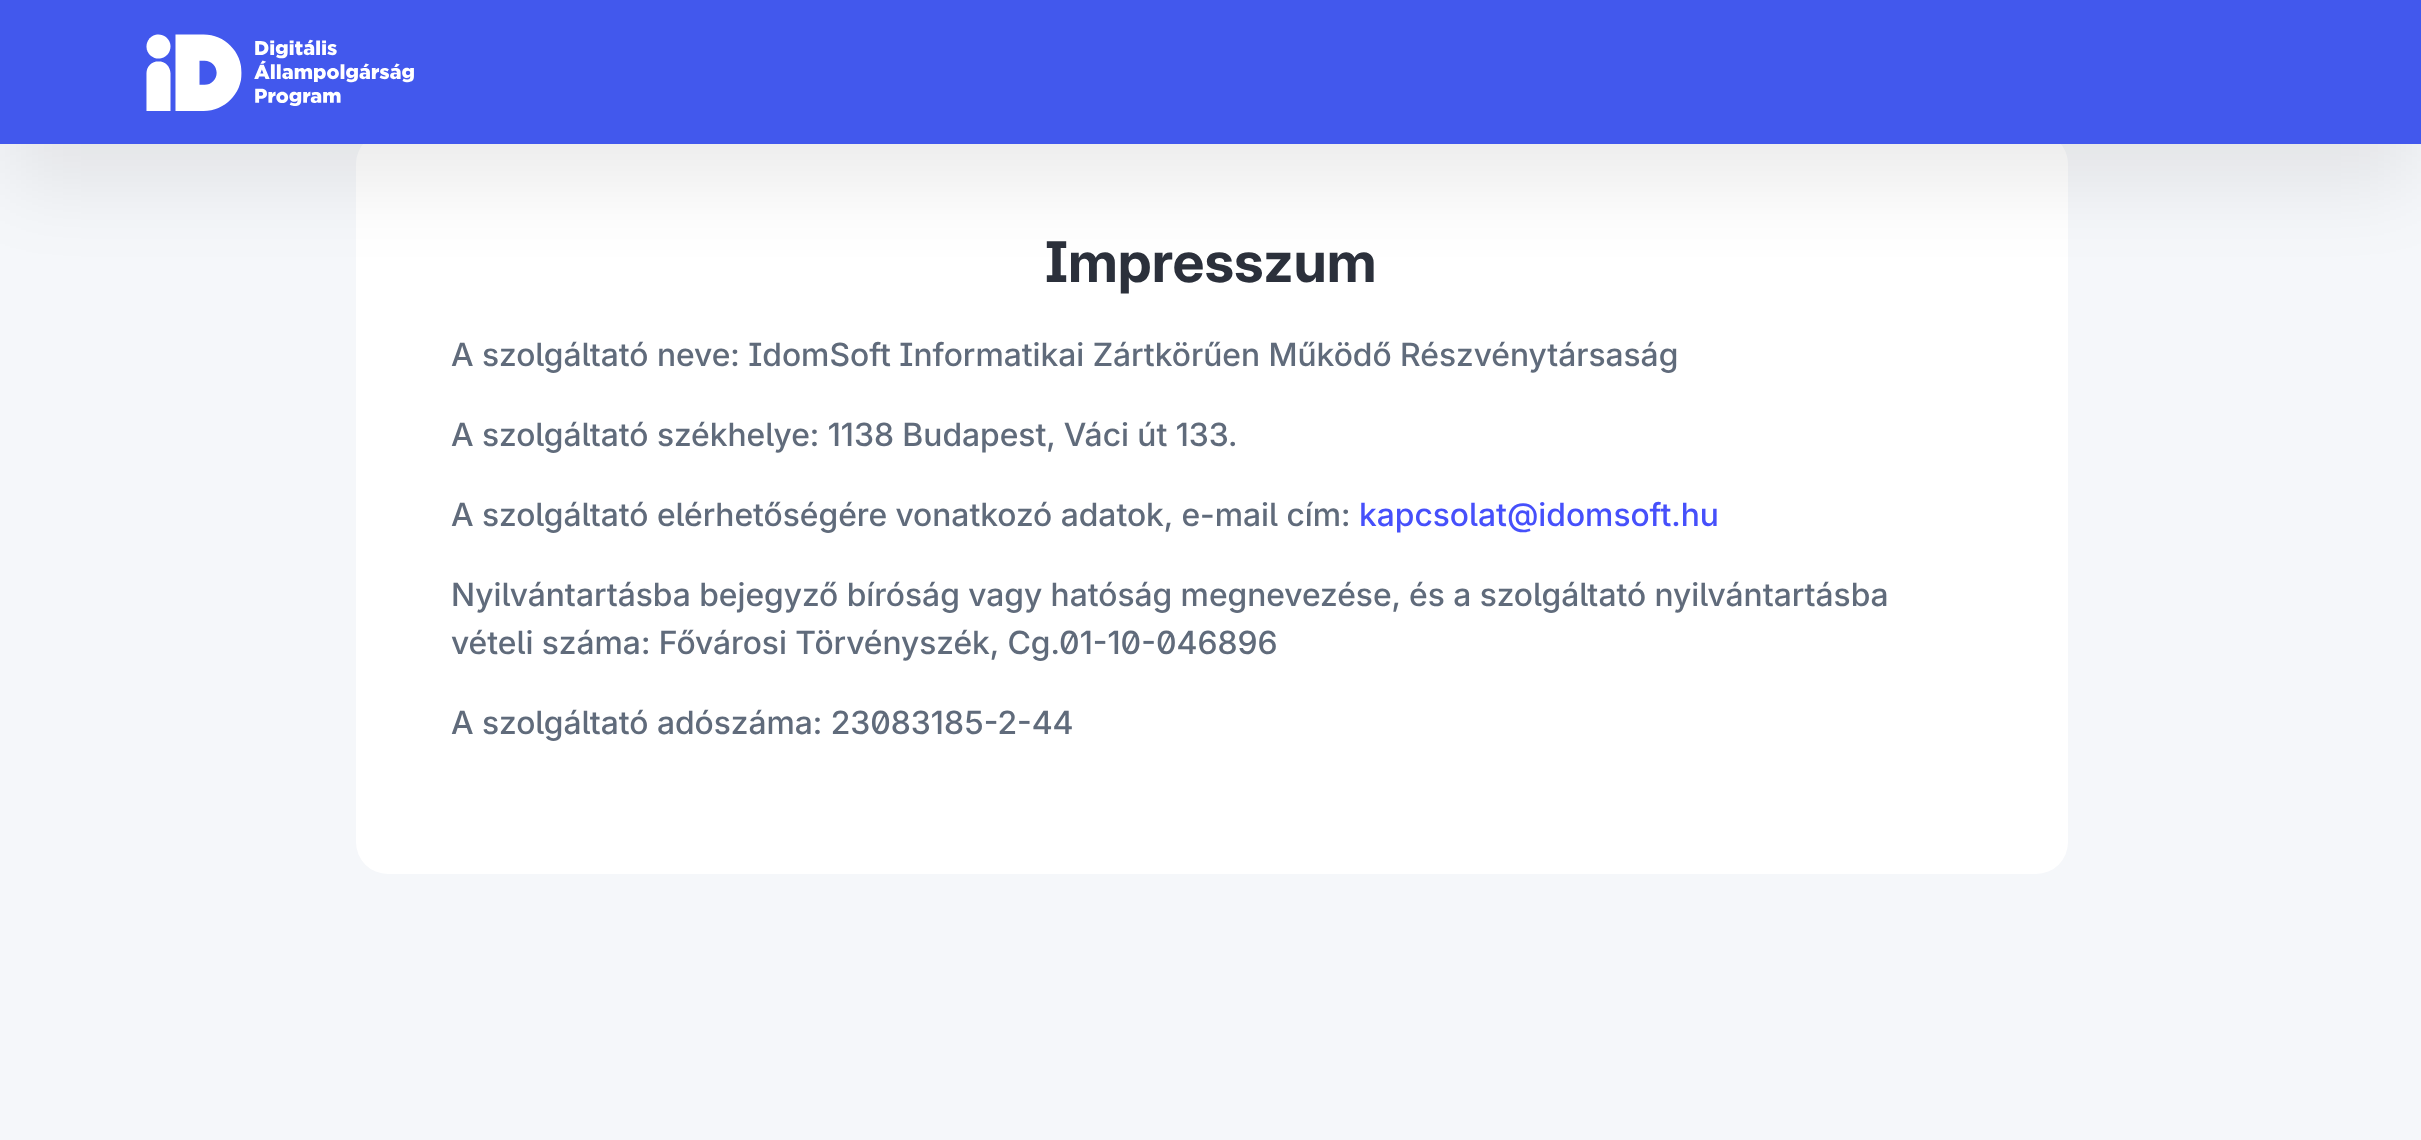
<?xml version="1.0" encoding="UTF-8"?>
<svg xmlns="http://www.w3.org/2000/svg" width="2421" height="1140">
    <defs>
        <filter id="blur1" x="-50%" y="-200%" width="200%" height="500%"><feGaussianBlur stdDeviation="40"/></filter>
    </defs>
    <rect width="100%" height="100%" fill="#F5F7FA"/>
    <rect x="356" y="132" width="1712" height="742" rx="32" fill="#FFFFFF"/>
    <rect x="8" y="56" width="2406" height="128" fill="#000000" fill-opacity="0.08" filter="url(#blur1)"/>
    <rect x="0" y="0" width="2421" height="144" fill="#4258ED"/>
    <image x="146" y="34" width="268" height="77" href="img_01.png"/>
    <text x="1045" y="282" font-family="Inter" font-size="56" font-weight="700" fill="#2B303B">Impresszum</text>
    <text x="451" y="366" font-family="Inter" font-size="32" font-weight="500" fill="#606B7B">A szolgáltató neve: IdomSoft Informatikai Zártkörűen Működő Részvénytársaság</text>
    <text x="451" y="446" font-family="Inter" font-size="32" font-weight="500" fill="#606B7B">A szolgáltató székhelye: 1138 Budapest, Váci út 133.</text>
    <text x="451" y="526" font-family="Inter" font-size="32" font-weight="500" fill="#606B7B">A szolgáltató elérhetőségére vonatkozó adatok, e-mail cím:</text>
    <text x="1359" y="526" font-family="Inter" font-size="32" font-weight="500" fill="#4650FB">kapcsolat@idomsoft.hu</text>
    <text font-family="Inter" font-size="32" font-weight="500" fill="#606B7B">
        <tspan x="451" y="606">Nyilvántartásba bejegyző bíróság vagy hatóság megnevezése, és a szolgáltató nyilvántartásba</tspan>
        <tspan x="451" y="654">vételi száma: Fővárosi Törvényszék, Cg.01-10-046896</tspan>
    </text>
    <text x="451" y="734" font-family="Inter" font-size="32" font-weight="500" fill="#606B7B">A szolgáltató adószáma: 23083185-2-44</text>
</svg>
